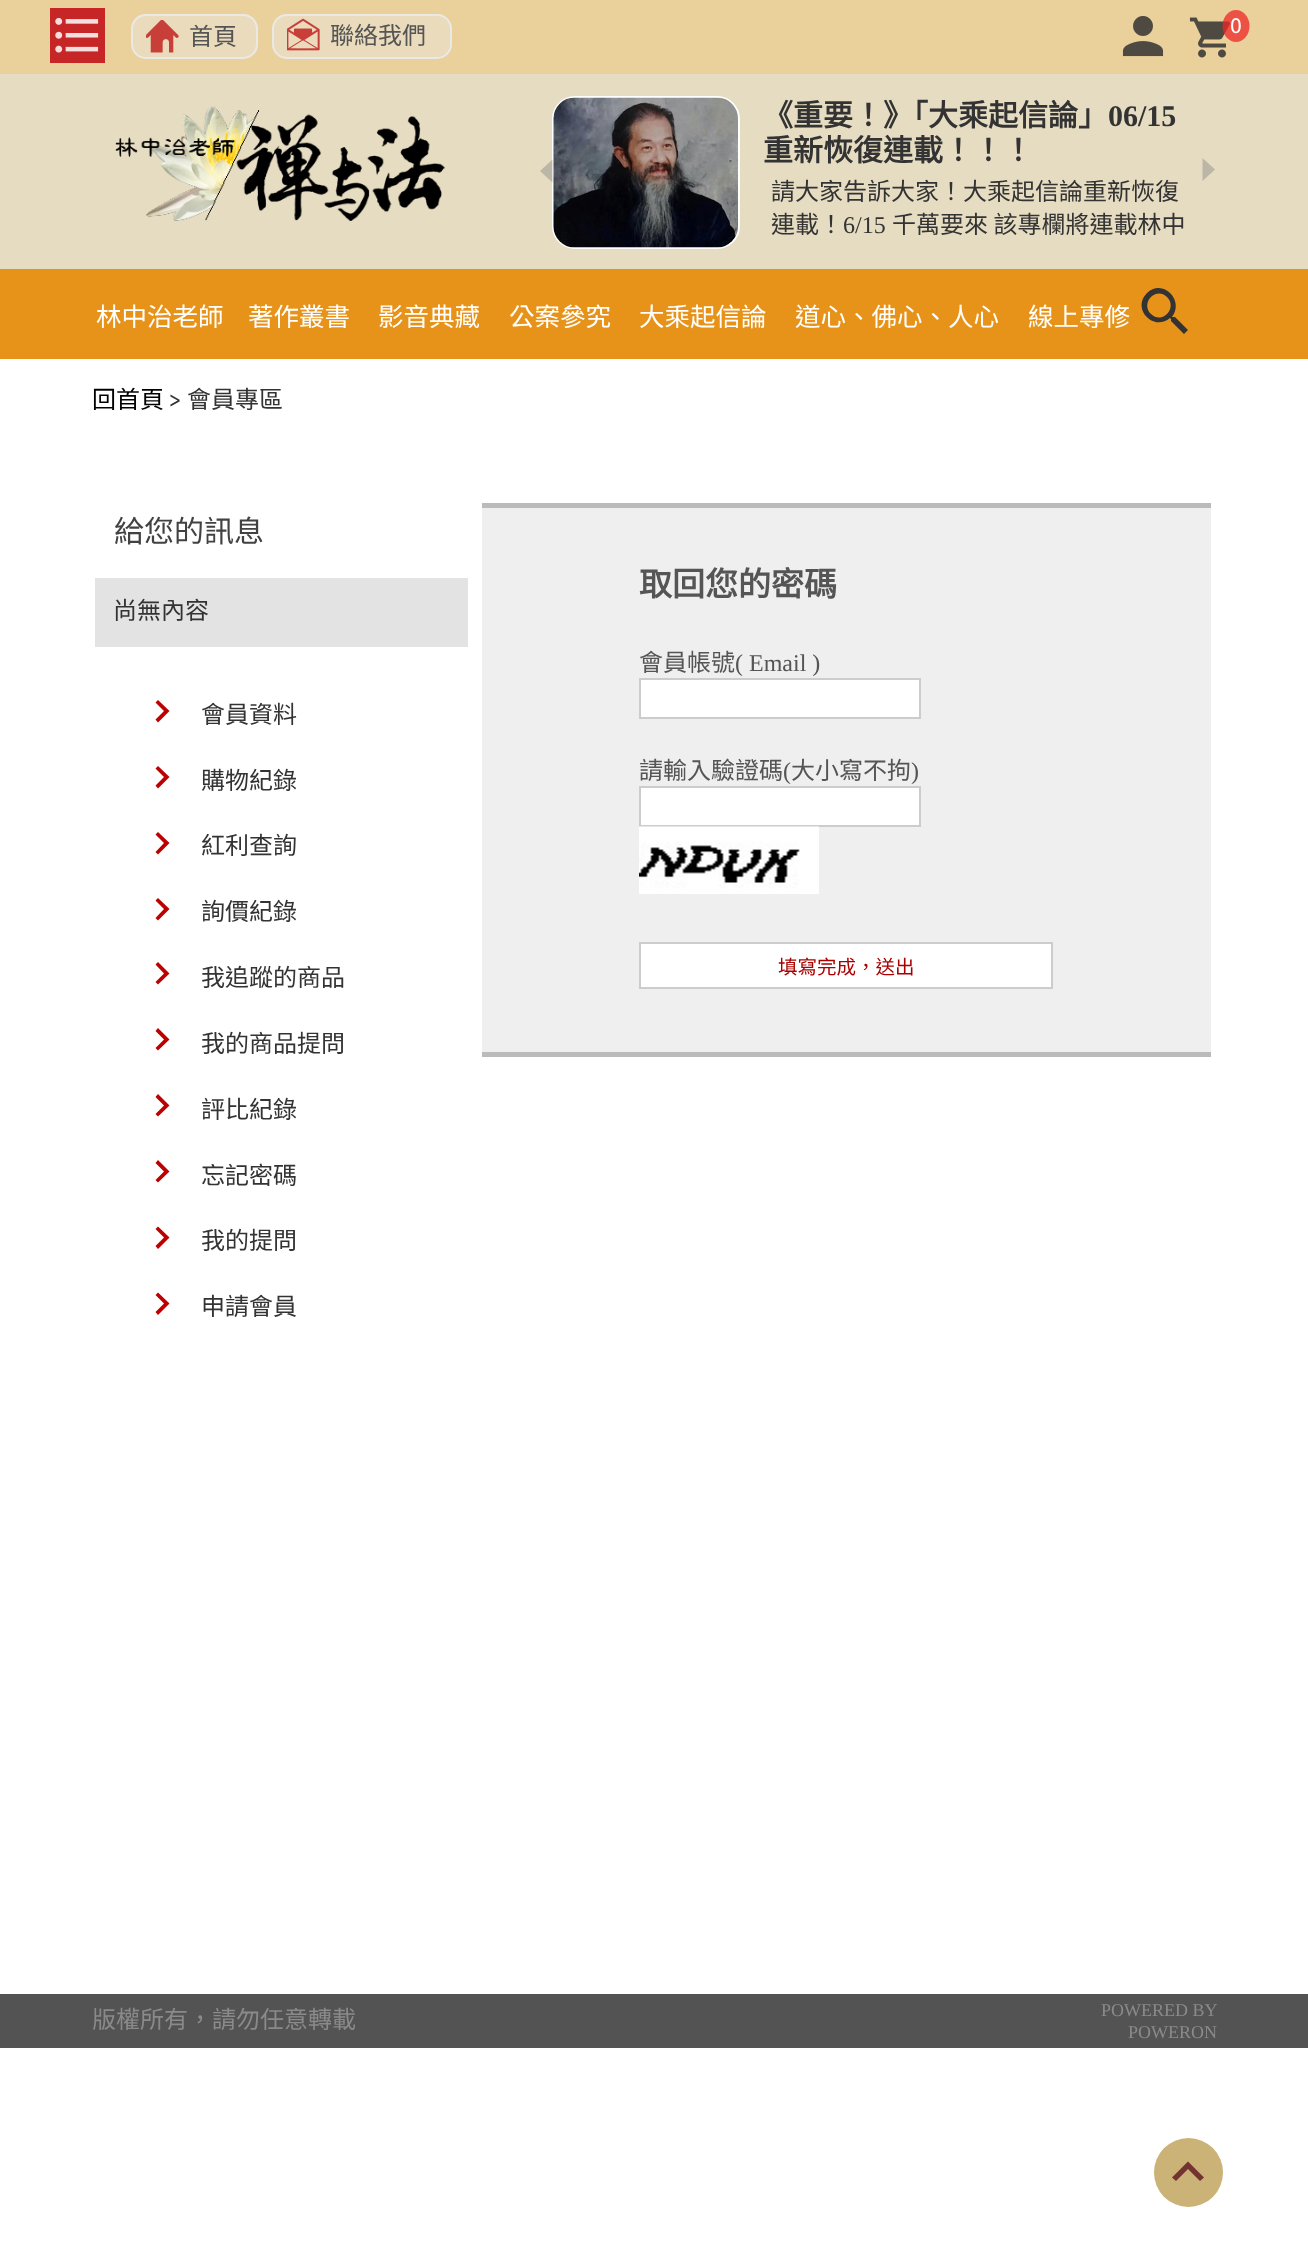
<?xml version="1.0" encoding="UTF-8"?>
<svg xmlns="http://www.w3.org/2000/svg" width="1308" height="2263">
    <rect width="100%" height="100%" fill="#FFFFFF"/>
    <rect x="0" y="0" width="1308" height="74" fill="#EAD19C"/>
    <rect x="50" y="8" width="55" height="55" fill="#C72626"/>
    <image x="55" y="17" width="44" height="36" href="img_01.png"/>
    <rect x="131" y="14" width="127" height="45" rx="15" fill="#EADBBC"/>
    <rect x="132" y="15" width="125" height="43" rx="14" fill="none" stroke="#EAEAEA" stroke-opacity="0.88" stroke-width="2"/>
    <image x="146" y="20" width="33" height="33" href="img_02.png"/>
    <text x="189" y="45" font-family="Noto Sans CJK TC" font-size="24" fill="#555555">首頁</text>
    <rect x="272" y="14" width="180" height="45" rx="15" fill="#EADBBC"/>
    <rect x="273" y="15" width="178" height="43" rx="14" fill="none" stroke="#EAEAEA" stroke-opacity="0.88" stroke-width="2"/>
    <image x="287" y="18" width="33" height="33" href="img_03.png"/>
    <text x="330" y="44" font-family="Noto Sans CJK TC" font-size="24" fill="#555555">聯絡我們</text>
    <image x="1122" y="16" width="42" height="41" href="img_04.png"/>
    <image x="1189" y="17" width="41" height="41" href="img_05.png"/>
    <ellipse cx="1236" cy="26" rx="13.5" ry="16" fill="#EE2626" fill-opacity="0.75"/>
    <text x="1230" y="33" font-family="Ubuntu" font-size="21" fill="#FFFFFF">0</text>
    <rect x="0" y="74" width="1308" height="195" fill="#E6DCC2"/>
    <image x="115" y="106" width="330" height="115" href="img_06.png"/>
    <rect x="553" y="97" width="186" height="151" rx="22" fill="none" stroke="#FFFFFF" stroke-width="2"/>
    <path d="M 552.5 159.5 V 182.5 L 540 171 Z" fill="#7D7D7D" fill-opacity="0.4"/>
    <image x="553" y="97" width="185" height="151" href="img_07.png"/>
    <text x="763" y="126" font-family="Noto Sans CJK TC" font-size="30" font-weight="700" fill="#333333">《重要！》「大乘起信論」</text>
    <text x="1108" y="126" font-family="Liberation Serif" font-size="30" font-weight="700" fill="#333333">06/15</text>
    <text x="763" y="161" font-family="Noto Sans CJK TC" font-size="30" font-weight="700" fill="#333333">重新恢復連載！！！</text>
    <text font-family="Noto Sans CJK TC" font-size="24" fill="#333333">
        <tspan x="771" y="200">請大家告訴大家！大乘起信論重新恢復</tspan>
        <tspan x="771" y="233">連載！</tspan>
    </text>
    <text x="843" y="233" font-family="Liberation Serif" font-size="24" fill="#333333">6/15</text>
    <text x="892" y="233" font-family="Noto Sans CJK TC" font-size="24" fill="#333333">千萬要來 該專欄將連載林中</text>
    <path d="M 1202.5 158 L 1215 169.5 L 1202.5 181 Z" fill="#BCB6A6"/>
    <rect x="0" y="269" width="1308" height="90" fill="#E7931A"/>
    <text x="96" y="326" font-family="Noto Sans CJK TC" font-size="25.5" fill="#FFFFFF">林中治老師</text>
    <text x="248" y="326" font-family="Noto Sans CJK TC" font-size="25.5" fill="#FFFFFF">著作叢書</text>
    <text x="378" y="326" font-family="Noto Sans CJK TC" font-size="25.5" fill="#FFFFFF">影音典藏</text>
    <text x="509" y="326" font-family="Noto Sans CJK TC" font-size="25.5" fill="#FFFFFF">公案參究</text>
    <text x="639" y="326" font-family="Noto Sans CJK TC" font-size="25.5" fill="#FFFFFF">大乘起信論</text>
    <text x="795" y="326" font-family="Noto Sans CJK TC" font-size="25.5" fill="#FFFFFF">道心、佛心、人心</text>
    <text x="1028" y="326" font-family="Noto Sans CJK TC" font-size="25.5" fill="#FFFFFF">線上專修</text>
    <path d="M 1151 314 C 1162 325 1178 308 1167 297 C 1156 286 1140 303 1151 314 Z M 1175 317 L 1188 330 L 1184 334 L 1171 321 V 319 L 1170 318 C 1154 332 1131 309 1147 293 C 1162 278 1185 300 1172 317 H 1173 Z" fill="#333333"/>
    <text x="92" y="408" font-family="Noto Sans CJK TC" font-size="24" fill="#000000">回首頁</text>
    <text x="169" y="408" font-family="Play" font-size="24" fill="#333333">&gt;</text>
    <text x="187" y="408" font-family="Noto Sans CJK TC" font-size="24" fill="#333333">會員專區</text>
    <text x="114" y="542" font-family="Noto Sans CJK TC" font-size="30" fill="#424242">給您的訊息</text>
    <rect x="95" y="578" width="373" height="69" fill="#E3E3E3"/>
    <text x="113" y="619" font-family="Noto Sans CJK TC" font-size="24" fill="#333333">尚無內容</text>
    <path d="M 158 700 L 169.5 711 L 158 722.5 L 155.5 719.5 L 164 711 L 155.5 702.5 Z" fill="#BD0000"/>
    <text x="201" y="723" font-family="Noto Sans CJK TC" font-size="24" fill="#333333">會員資料</text>
    <path d="M 158 766 L 169.5 777 L 158 788.5 L 155.5 785.5 L 164 777 L 155.5 768.5 Z" fill="#BD0000"/>
    <text x="201" y="789" font-family="Noto Sans CJK TC" font-size="24" fill="#333333">購物紀錄</text>
    <path d="M 158 832 L 169.5 843 L 158 854.5 L 155.5 852 L 164 843 L 155.5 834.5 Z" fill="#BD0000"/>
    <text x="201" y="854" font-family="Noto Sans CJK TC" font-size="24" fill="#333333">紅利查詢</text>
    <path d="M 158 898 L 169.5 909 L 158 920.5 L 155.5 918 L 164 909 L 155.5 900.5 Z" fill="#BD0000"/>
    <text x="201" y="920" font-family="Noto Sans CJK TC" font-size="24" fill="#333333">詢價紀錄</text>
    <path d="M 158 962 L 169.5 973.5 L 158 984.5 L 155.5 982 L 164 973.5 L 155.5 964.5 Z" fill="#BD0000"/>
    <text x="201" y="986" font-family="Noto Sans CJK TC" font-size="24" fill="#333333">我追蹤的商品</text>
    <path d="M 158 1028 L 169.5 1039.5 L 158 1050.5 L 155.5 1048 L 164 1039.5 L 155.5 1031 Z" fill="#BD0000"/>
    <text x="201" y="1052" font-family="Noto Sans CJK TC" font-size="24" fill="#333333">我的商品提問</text>
    <path d="M 158 1094 L 169.5 1105.5 L 158 1116.5 L 155.5 1114 L 164 1105.5 L 155.5 1097 Z" fill="#BD0000"/>
    <text x="201" y="1118" font-family="Noto Sans CJK TC" font-size="24" fill="#333333">評比紀錄</text>
    <path d="M 158 1160 L 169.5 1171.5 L 158 1182.5 L 155.5 1180 L 164 1171.5 L 155.5 1163 Z" fill="#BD0000"/>
    <text x="201" y="1184" font-family="Noto Sans CJK TC" font-size="24" fill="#333333">忘記密碼</text>
    <path d="M 158 1226.5 L 169.5 1237.5 L 158 1249 L 155.5 1246 L 164 1237.5 L 155.5 1229 Z" fill="#BD0000"/>
    <text x="201" y="1249" font-family="Noto Sans CJK TC" font-size="24" fill="#333333">我的提問</text>
    <path d="M 158 1292.5 L 169.5 1303.5 L 158 1315 L 155.5 1312 L 164 1303.5 L 155.5 1295 Z" fill="#BD0000"/>
    <text x="201" y="1315" font-family="Noto Sans CJK TC" font-size="24" fill="#333333">申請會員</text>
    <rect x="482" y="508" width="729" height="544" fill="#EFEFEF"/>
    <rect x="482" y="503" width="729" height="5" fill="#BBBBBB"/>
    <rect x="482" y="1052" width="729" height="5" fill="#BBBBBB"/>
    <text x="639" y="596" font-family="Noto Sans CJK TC" font-size="33" font-weight="700" fill="#555555">取回您的密碼</text>
    <text x="639" y="671" font-family="Noto Sans CJK TC" font-size="24" fill="#555555">會員帳號</text>
    <text x="735" y="671" font-family="Liberation Serif" font-size="24" fill="#555555">( Email )</text>
    <rect x="640" y="679" width="280" height="39" fill="#FFFFFF" stroke="#CCCCCC" stroke-width="2"/>
    <text x="639" y="779" font-family="Noto Sans CJK TC" font-size="24" fill="#555555">請輸入驗證碼</text>
    <text x="783" y="779" font-family="Liberation Serif" font-size="24" fill="#555555">(</text>
    <text x="791" y="779" font-family="Noto Sans CJK TC" font-size="24" fill="#555555">大小寫不拘</text>
    <text x="911" y="779" font-family="Liberation Serif" font-size="24" fill="#555555">)</text>
    <rect x="640" y="787" width="280" height="39" fill="#FFFFFF" stroke="#CCCCCC" stroke-width="2"/>
    <image x="639" y="826" width="180" height="68" href="img_08.png"/>
    <rect x="640" y="943" width="412" height="45" fill="#FFFFFF" stroke="#CCCCCC" stroke-width="2"/>
    <text x="778" y="974" font-family="Noto Sans CJK TC" font-size="19.5" fill="#AA0000">填寫完成，送出</text>
    <rect x="0" y="1994" width="1308" height="54" fill="#535353"/>
    <text x="92" y="2028" font-family="Noto Sans CJK TC" font-size="24" fill="#8A8A8A">版權所有，請勿任意轉載</text>
    <text x="1101" y="2016" font-family="Liberation Serif" font-size="18" fill="#8A8A8A">POWERED BY</text>
    <text x="1128" y="2038" font-family="Liberation Serif" font-size="18" fill="#8A8A8A">POWERON</text>
    <circle cx="1188.5" cy="2172.5" r="34.5" fill="#CBB276"/>
    <path d="M 1176 2181 L 1172 2177.5 L 1188 2161.5 L 1204 2177.5 L 1200 2181 L 1188 2169 Z" fill="#733333"/>
</svg>
